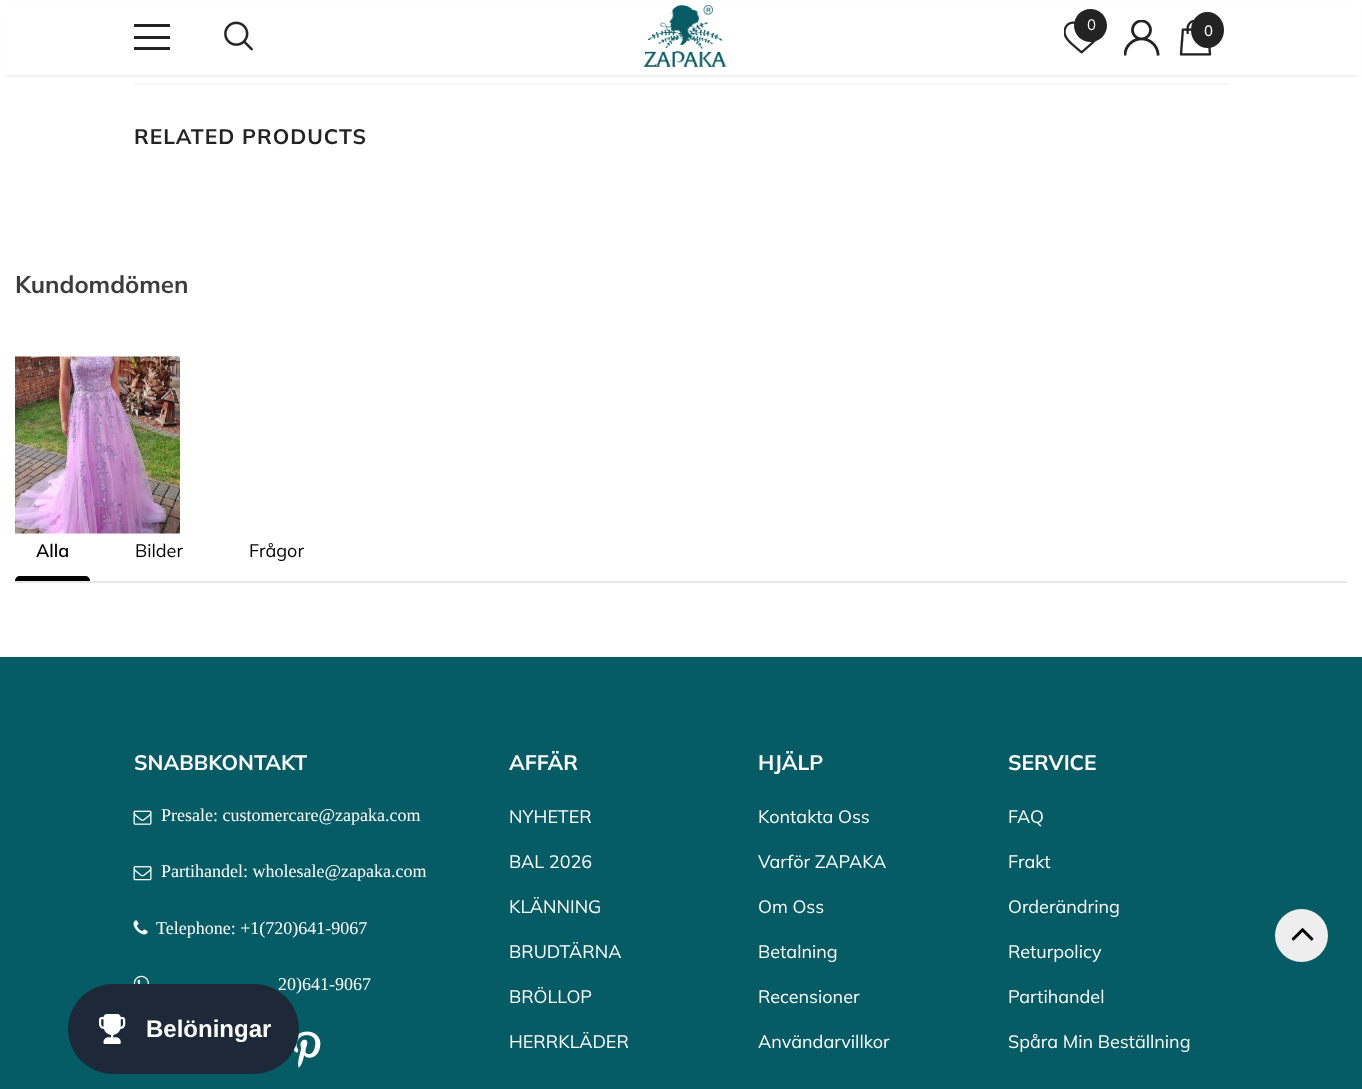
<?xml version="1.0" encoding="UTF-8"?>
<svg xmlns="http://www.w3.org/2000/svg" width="1362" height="1089">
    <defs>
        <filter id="blur1" x="-50%" y="-200%" width="200%" height="500%"><feGaussianBlur stdDeviation="2"/></filter>
    </defs>
    <rect width="100%" height="100%" fill="#FFFFFF"/>
    <rect x="5" y="9" width="1353" height="66" fill="#000000" fill-opacity="0.12" filter="url(#blur1)"/>
    <rect x="2" y="6" width="1359" height="69" fill="#FFFFFF"/>
    <rect x="134" y="24" width="36" height="3" fill="#232323"/>
    <rect x="134" y="36" width="36" height="3" fill="#232323"/>
    <rect x="134" y="47" width="36" height="3" fill="#232323"/>
    <image x="224" y="21" width="29" height="30" href="img_01.png"/>
    <image x="643" y="5" width="84" height="62" href="img_02.png"/>
    <image x="1064" y="21" width="33" height="33" href="img_03.png"/>
    <circle cx="1090.5" cy="25.5" r="16.5" fill="#232323"/>
    <text x="1087" y="30" font-family="Muli" font-size="15" fill="#FFFFFF">0</text>
    <image x="1124" y="20" width="36" height="36" href="img_04.png"/>
    <image x="1179" y="20" width="33" height="36" href="img_05.png"/>
    <ellipse cx="1207.5" cy="30" rx="16.5" ry="18" fill="#232323"/>
    <text x="1204" y="36" font-family="Muli" font-size="15" font-weight="500" fill="#FFFFFF">0</text>
    <rect x="134" y="83" width="1095" height="2" fill="#F6F6F6"/>
    <text x="134" y="144" font-family="Muli" font-size="21" font-weight="700" letter-spacing="1" fill="#232323">RELATED PRODUCTS</text>
    <text x="15" y="293" font-family="Muli" font-size="24" font-weight="700" fill="#3C3C3C">Kundomdömen</text>
    <image x="15" y="356" width="165" height="178" href="img_06.png"/>
    <rect x="15" y="581" width="1332" height="2" fill="#E5E7EB"/>
    <text x="36" y="557" font-family="Muli" font-size="18" font-weight="600" fill="#000000">Alla</text>
    <path d="M 20 576 H 85 C 88 576 90 578 90 581 H 15 C 15 578 17 576 20 576 Z" fill="#000000"/>
    <text x="135" y="557" font-family="Muli" font-size="18" fill="#000000">Bilder</text>
    <text x="249" y="557" font-family="Muli" font-size="18" fill="#000000">Frågor</text>
    <rect x="0" y="657" width="1362" height="432" fill="#065C65"/>
    <text x="134" y="770" font-family="Muli" font-size="21" font-weight="700" fill="#FFFFFF">SNABBKONTAKT</text>
    <image x="133" y="810" width="19" height="15" href="img_07.png"/>
    <text x="161" y="821" font-family="Liberation Serif" font-size="18" fill="#FFFFFF">Presale: customercare@zapaka.com</text>
    <image x="133" y="866" width="19" height="15" href="img_08.png"/>
    <text x="161" y="877" font-family="Liberation Serif" font-size="18" fill="#FFFFFF">Partihandel: wholesale@zapaka.com</text>
    <image x="133" y="920" width="15" height="15" href="img_09.png"/>
    <text x="156" y="934" font-family="Liberation Serif" font-size="18" fill="#FFFFFF">Telephone: +1(720)641-9067</text>
    <image x="133" y="975" width="16" height="9" href="img_10.png"/>
    <text x="278" y="990" font-family="Liberation Serif" font-size="18" fill="#FFFFFF">20)641-9067</text>
    <image x="293" y="1031" width="28" height="37" href="img_11.png"/>
    <text x="509" y="770" font-family="Muli" font-size="21" font-weight="700" fill="#FFFFFF">AFFÄR</text>
    <text x="509" y="823" font-family="Muli" font-size="18" fill="#FFFFFF">NYHETER</text>
    <text x="509" y="868" font-family="Muli" font-size="18" fill="#FFFFFF">BAL 2026</text>
    <text x="509" y="913" font-family="Muli" font-size="18" fill="#FFFFFF">KLÄNNING</text>
    <text x="509" y="958" font-family="Muli" font-size="18" fill="#FFFFFF">BRUDTÄRNA</text>
    <text x="509" y="1003" font-family="Muli" font-size="18" fill="#FFFFFF">BRÖLLOP</text>
    <text x="509" y="1048" font-family="Muli" font-size="18" fill="#FFFFFF">HERRKLÄDER</text>
    <text x="758" y="770" font-family="Muli" font-size="21" font-weight="700" fill="#FFFFFF">HJÄLP</text>
    <text x="758" y="823" font-family="Muli" font-size="18" fill="#FFFFFF">Kontakta Oss</text>
    <text x="758" y="868" font-family="Muli" font-size="18" fill="#FFFFFF">Varför ZAPAKA</text>
    <text x="758" y="913" font-family="Muli" font-size="18" fill="#FFFFFF">Om Oss</text>
    <text x="758" y="958" font-family="Muli" font-size="18" fill="#FFFFFF">Betalning</text>
    <text x="758" y="1003" font-family="Muli" font-size="18" fill="#FFFFFF">Recensioner</text>
    <text x="758" y="1048" font-family="Muli" font-size="18" fill="#FFFFFF">Användarvillkor</text>
    <text x="1008" y="770" font-family="Muli" font-size="21" font-weight="700" fill="#FFFFFF">SERVICE</text>
    <text x="1008" y="823" font-family="Muli" font-size="18" fill="#FFFFFF">FAQ</text>
    <text x="1008" y="868" font-family="Muli" font-size="18" fill="#FFFFFF">Frakt</text>
    <text x="1008" y="913" font-family="Muli" font-size="18" fill="#FFFFFF">Orderändring</text>
    <text x="1008" y="958" font-family="Muli" font-size="18" fill="#FFFFFF">Returpolicy</text>
    <text x="1008" y="1003" font-family="Muli" font-size="18" fill="#FFFFFF">Partihandel</text>
    <text x="1008" y="1048" font-family="Muli" font-size="18" fill="#FFFFFF">Spåra Min Beställning</text>
    <circle cx="1301.5" cy="935.5" r="26.5" fill="#EEEEEE"/>
    <image x="1291" y="928" width="23" height="13" href="img_12.png"/>
    <rect x="68" y="984" width="231" height="90" rx="45" fill="#1D2939"/>
    <image x="99" y="1014" width="27" height="30" href="img_13.png"/>
    <text x="146" y="1037" font-family="Liberation Sans" font-size="24" font-weight="700" fill="#FFFFFF">Belöningar</text>
</svg>
